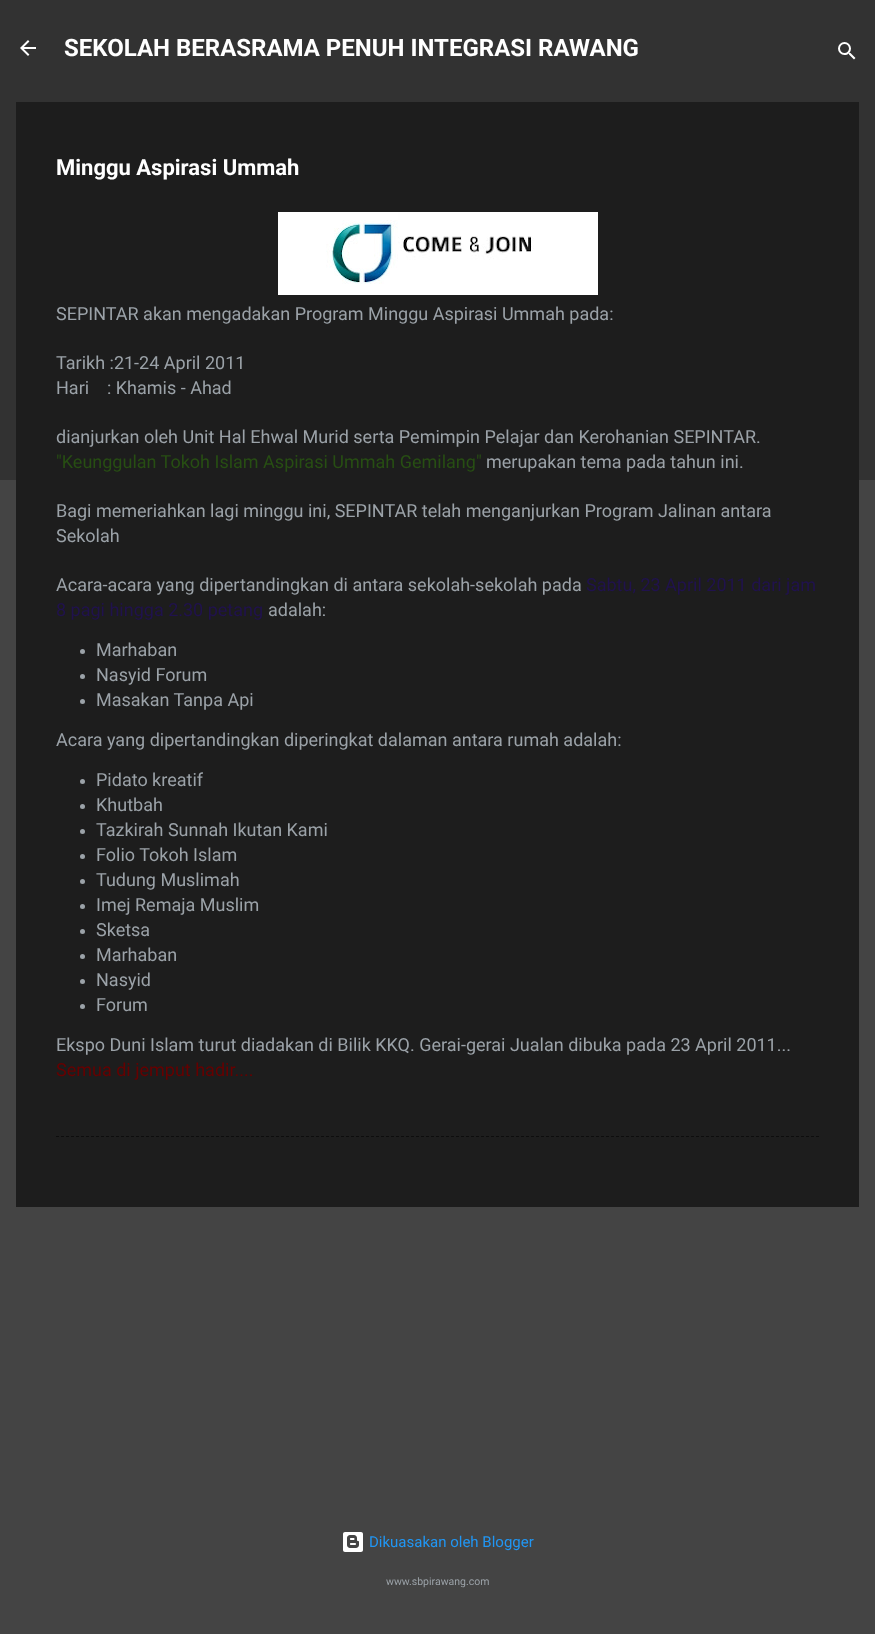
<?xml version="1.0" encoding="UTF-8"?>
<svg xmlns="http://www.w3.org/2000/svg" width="875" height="1634">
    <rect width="100%" height="100%" fill="#444444"/>
    <rect x="0" y="0" width="875" height="480" fill="#323232"/>
    <image x="20" y="40" width="16" height="16" href="img_01.png"/>
    <text x="64" y="56" font-family="Roboto" font-size="24" font-weight="700" fill="#FFFFFF">SEKOLAH BERASRAMA PENUH INTEGRASI RAWANG</text>
    <image x="838" y="42" width="18" height="18" href="img_02.png"/>
    <rect x="16" y="102" width="843" height="1105" fill="#1D1D1D"/>
    <text x="56" y="175" font-family="Roboto" font-size="22" font-weight="700" fill="#FFFFFF">Minggu Aspirasi Ummah</text>
    <image x="278" y="212" width="320" height="83" href="img_03.png"/>
    <text x="56" y="320" font-family="Roboto" font-size="18" fill="#9BA2A8">SEPINTAR akan mengadakan Program Minggu Aspirasi Ummah pada:</text>
    <text font-family="Roboto" font-size="18" fill="#9BA2A8" xml:space="preserve"><tspan x="56" y="369">Tarikh :21-24 April 2011</tspan><tspan x="56" y="394">Hari    : Khamis - Ahad</tspan></text>
    <text x="56" y="443" font-family="Roboto" font-size="18" fill="#9BA2A8">dianjurkan oleh Unit Hal Ehwal Murid serta Pemimpin Pelajar dan Kerohanian SEPINTAR.</text>
    <text x="56" y="468" font-family="Roboto" font-size="18" fill="#274E13">"Keunggulan Tokoh Islam Aspirasi Ummah Gemilang"</text>
    <text x="486" y="468" font-family="Roboto" font-size="18" fill="#9BA2A8">merupakan tema pada tahun ini.</text>
    <text font-family="Roboto" font-size="18" fill="#9BA2A8">
        <tspan x="56" y="517">Bagi memeriahkan lagi minggu ini, SEPINTAR telah menganjurkan Program Jalinan antara</tspan>
        <tspan x="56" y="542">Sekolah</tspan>
    </text>
    <text x="56" y="591" font-family="Roboto" font-size="18" fill="#9BA2A8">Acara-acara yang dipertandingkan di antara sekolah-sekolah pada</text>
    <text x="586" y="591" font-family="Roboto" font-size="18" fill="#20124D">Sabtu, 23 April 2011 dari jam</text>
    <text x="56" y="616" font-family="Roboto" font-size="18" fill="#20124D">8 pagi hingga 2.30 petang</text>
    <text x="268" y="616" font-family="Roboto" font-size="18" fill="#9BA2A8">adalah:</text>
    <circle cx="82.5" cy="651.5" r="2.5" fill="#9BA2A8"/>
    <text x="96" y="656" font-family="Roboto" font-size="18" fill="#9BA2A8">Marhaban</text>
    <circle cx="82.5" cy="676.5" r="2.5" fill="#9BA2A8"/>
    <text x="96" y="681" font-family="Roboto" font-size="18" fill="#9BA2A8">Nasyid Forum</text>
    <circle cx="82.5" cy="701.5" r="2.5" fill="#9BA2A8"/>
    <text x="96" y="706" font-family="Roboto" font-size="18" fill="#9BA2A8">Masakan Tanpa Api</text>
    <text x="56" y="746" font-family="Roboto" font-size="18" fill="#9BA2A8">Acara yang dipertandingkan diperingkat dalaman antara rumah adalah:</text>
    <circle cx="82.5" cy="781.5" r="2.5" fill="#9BA2A8"/>
    <text x="96" y="786" font-family="Roboto" font-size="18" fill="#9BA2A8">Pidato kreatif</text>
    <circle cx="82.5" cy="806.5" r="2.5" fill="#9BA2A8"/>
    <text x="96" y="811" font-family="Roboto" font-size="18" fill="#9BA2A8">Khutbah</text>
    <circle cx="82.5" cy="831.5" r="2.5" fill="#9BA2A8"/>
    <text x="96" y="836" font-family="Roboto" font-size="18" fill="#9BA2A8">Tazkirah Sunnah Ikutan Kami</text>
    <circle cx="82.5" cy="856.5" r="2.5" fill="#9BA2A8"/>
    <text x="96" y="861" font-family="Roboto" font-size="18" fill="#9BA2A8">Folio Tokoh Islam</text>
    <circle cx="82.5" cy="881.5" r="2.5" fill="#9BA2A8"/>
    <text x="96" y="886" font-family="Roboto" font-size="18" fill="#9BA2A8">Tudung Muslimah</text>
    <circle cx="82.5" cy="906.5" r="2.5" fill="#9BA2A8"/>
    <text x="96" y="911" font-family="Roboto" font-size="18" fill="#9BA2A8">Imej Remaja Muslim</text>
    <circle cx="82.5" cy="931.5" r="2.5" fill="#9BA2A8"/>
    <text x="96" y="936" font-family="Roboto" font-size="18" fill="#9BA2A8">Sketsa</text>
    <circle cx="82.5" cy="956.5" r="2.5" fill="#9BA2A8"/>
    <text x="96" y="961" font-family="Roboto" font-size="18" fill="#9BA2A8">Marhaban</text>
    <circle cx="82.5" cy="981.5" r="2.5" fill="#9BA2A8"/>
    <text x="96" y="986" font-family="Roboto" font-size="18" fill="#9BA2A8">Nasyid</text>
    <circle cx="82.5" cy="1006.5" r="2.5" fill="#9BA2A8"/>
    <text x="96" y="1011" font-family="Roboto" font-size="18" fill="#9BA2A8">Forum</text>
    <text x="56" y="1051" font-family="Roboto" font-size="18" fill="#9BA2A8">Ekspo Duni Islam turut diadakan di Bilik KKQ. Gerai-gerai Jualan dibuka pada 23 April 2011...</text>
    <text x="56" y="1076" font-family="Roboto" font-size="18" fill="#660000">Semua di jemput hadir....</text>
    <path d="M 56 1136.5 H 819" fill="none" stroke="#0D0D0D" stroke-dasharray="3 2"/>
    <image x="343" y="1532" width="20" height="20" href="img_04.png"/>
    <text x="369" y="1547" font-family="Roboto" font-size="15" fill="#2196F3">Dikuasakan oleh Blogger</text>
    <text x="386" y="1585" font-family="Roboto" font-size="10.5" fill="#9BA2A8">www.sbpirawang.com</text>
</svg>
